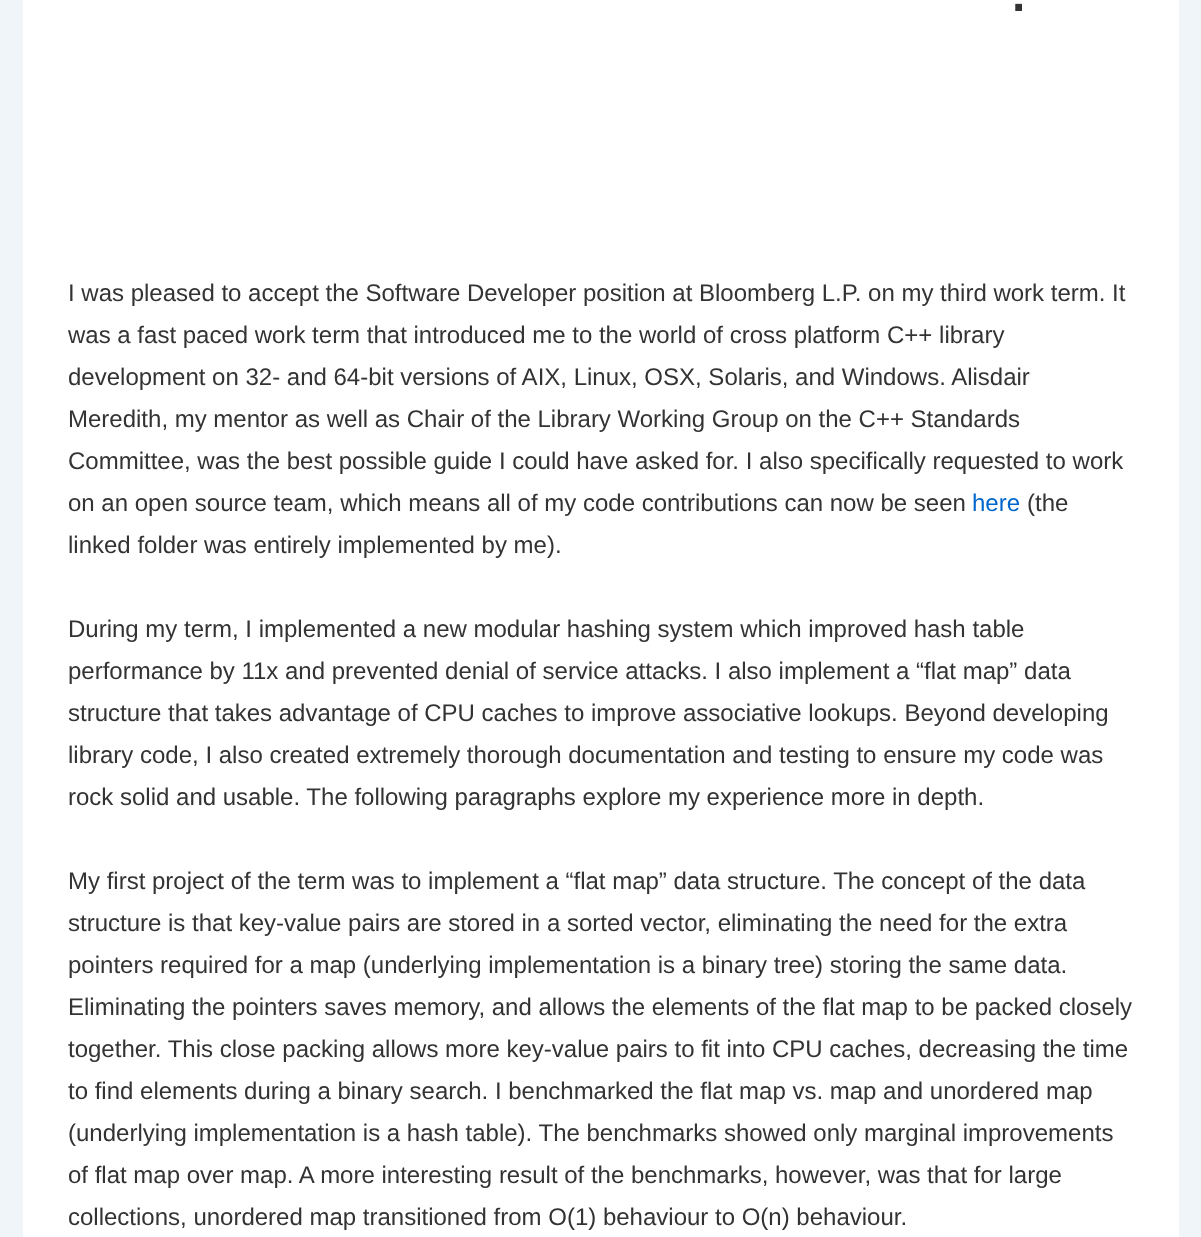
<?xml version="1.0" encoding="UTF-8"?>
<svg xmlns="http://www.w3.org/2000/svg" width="1201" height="1237">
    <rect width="100%" height="100%" fill="#F0F5FA"/>
    <rect x="23" y="0" width="1156" height="1237" fill="#FFFFFF"/>
    <text x="1012" y="11" font-family="Liberation Sans" font-size="48" font-weight="700" fill="#333333">.</text>
    <text font-family="Liberation Sans" font-size="24" fill="#333333">
        <tspan x="68" y="301">I was pleased to accept the Software Developer position at Bloomberg L.P. on my third work term. It</tspan>
        <tspan x="68" y="343">was a fast paced work term that introduced me to the world of cross platform C++ library</tspan>
        <tspan x="68" y="385">development on 32- and 64-bit versions of AIX, Linux, OSX, Solaris, and Windows. Alisdair</tspan>
        <tspan x="68" y="427">Meredith, my mentor as well as Chair of the Library Working Group on the C++ Standards</tspan>
        <tspan x="68" y="469">Committee, was the best possible guide I could have asked for. I also specifically requested to work</tspan>
        <tspan x="68" y="511">on an open source team, which means all of my code contributions can now be seen</tspan>
    </text>
    <text x="972" y="511" font-family="Liberation Sans" font-size="24" fill="#0066CC">here</text>
    <text x="1027" y="511" font-family="Liberation Sans" font-size="24" fill="#333333">(the</text>
    <text x="68" y="553" font-family="Liberation Sans" font-size="24" fill="#333333">linked folder was entirely implemented by me).</text>
    <text font-family="Liberation Sans" font-size="24" fill="#333333">
        <tspan x="68" y="637">During my term, I implemented a new modular hashing system which improved hash table</tspan>
        <tspan x="68" y="679">performance by 11x and prevented denial of service attacks. I also implement a “flat map” data</tspan>
        <tspan x="68" y="721">structure that takes advantage of CPU caches to improve associative lookups. Beyond developing</tspan>
        <tspan x="68" y="763">library code, I also created extremely thorough documentation and testing to ensure my code was</tspan>
        <tspan x="68" y="805">rock solid and usable. The following paragraphs explore my experience more in depth.</tspan>
    </text>
    <text font-family="Liberation Sans" font-size="24" fill="#333333">
        <tspan x="68" y="889">My first project of the term was to implement a “flat map” data structure. The concept of the data</tspan>
        <tspan x="68" y="931">structure is that key-value pairs are stored in a sorted vector, eliminating the need for the extra</tspan>
        <tspan x="68" y="973">pointers required for a map (underlying implementation is a binary tree) storing the same data.</tspan>
        <tspan x="68" y="1015">Eliminating the pointers saves memory, and allows the elements of the flat map to be packed closely</tspan>
        <tspan x="68" y="1057">together. This close packing allows more key-value pairs to fit into CPU caches, decreasing the time</tspan>
        <tspan x="68" y="1099">to find elements during a binary search. I benchmarked the flat map vs. map and unordered map</tspan>
        <tspan x="68" y="1141">(underlying implementation is a hash table). The benchmarks showed only marginal improvements</tspan>
        <tspan x="68" y="1183">of flat map over map. A more interesting result of the benchmarks, however, was that for large</tspan>
        <tspan x="68" y="1225">collections, unordered map transitioned from O(1) behaviour to O(n) behaviour.</tspan>
    </text>
</svg>
